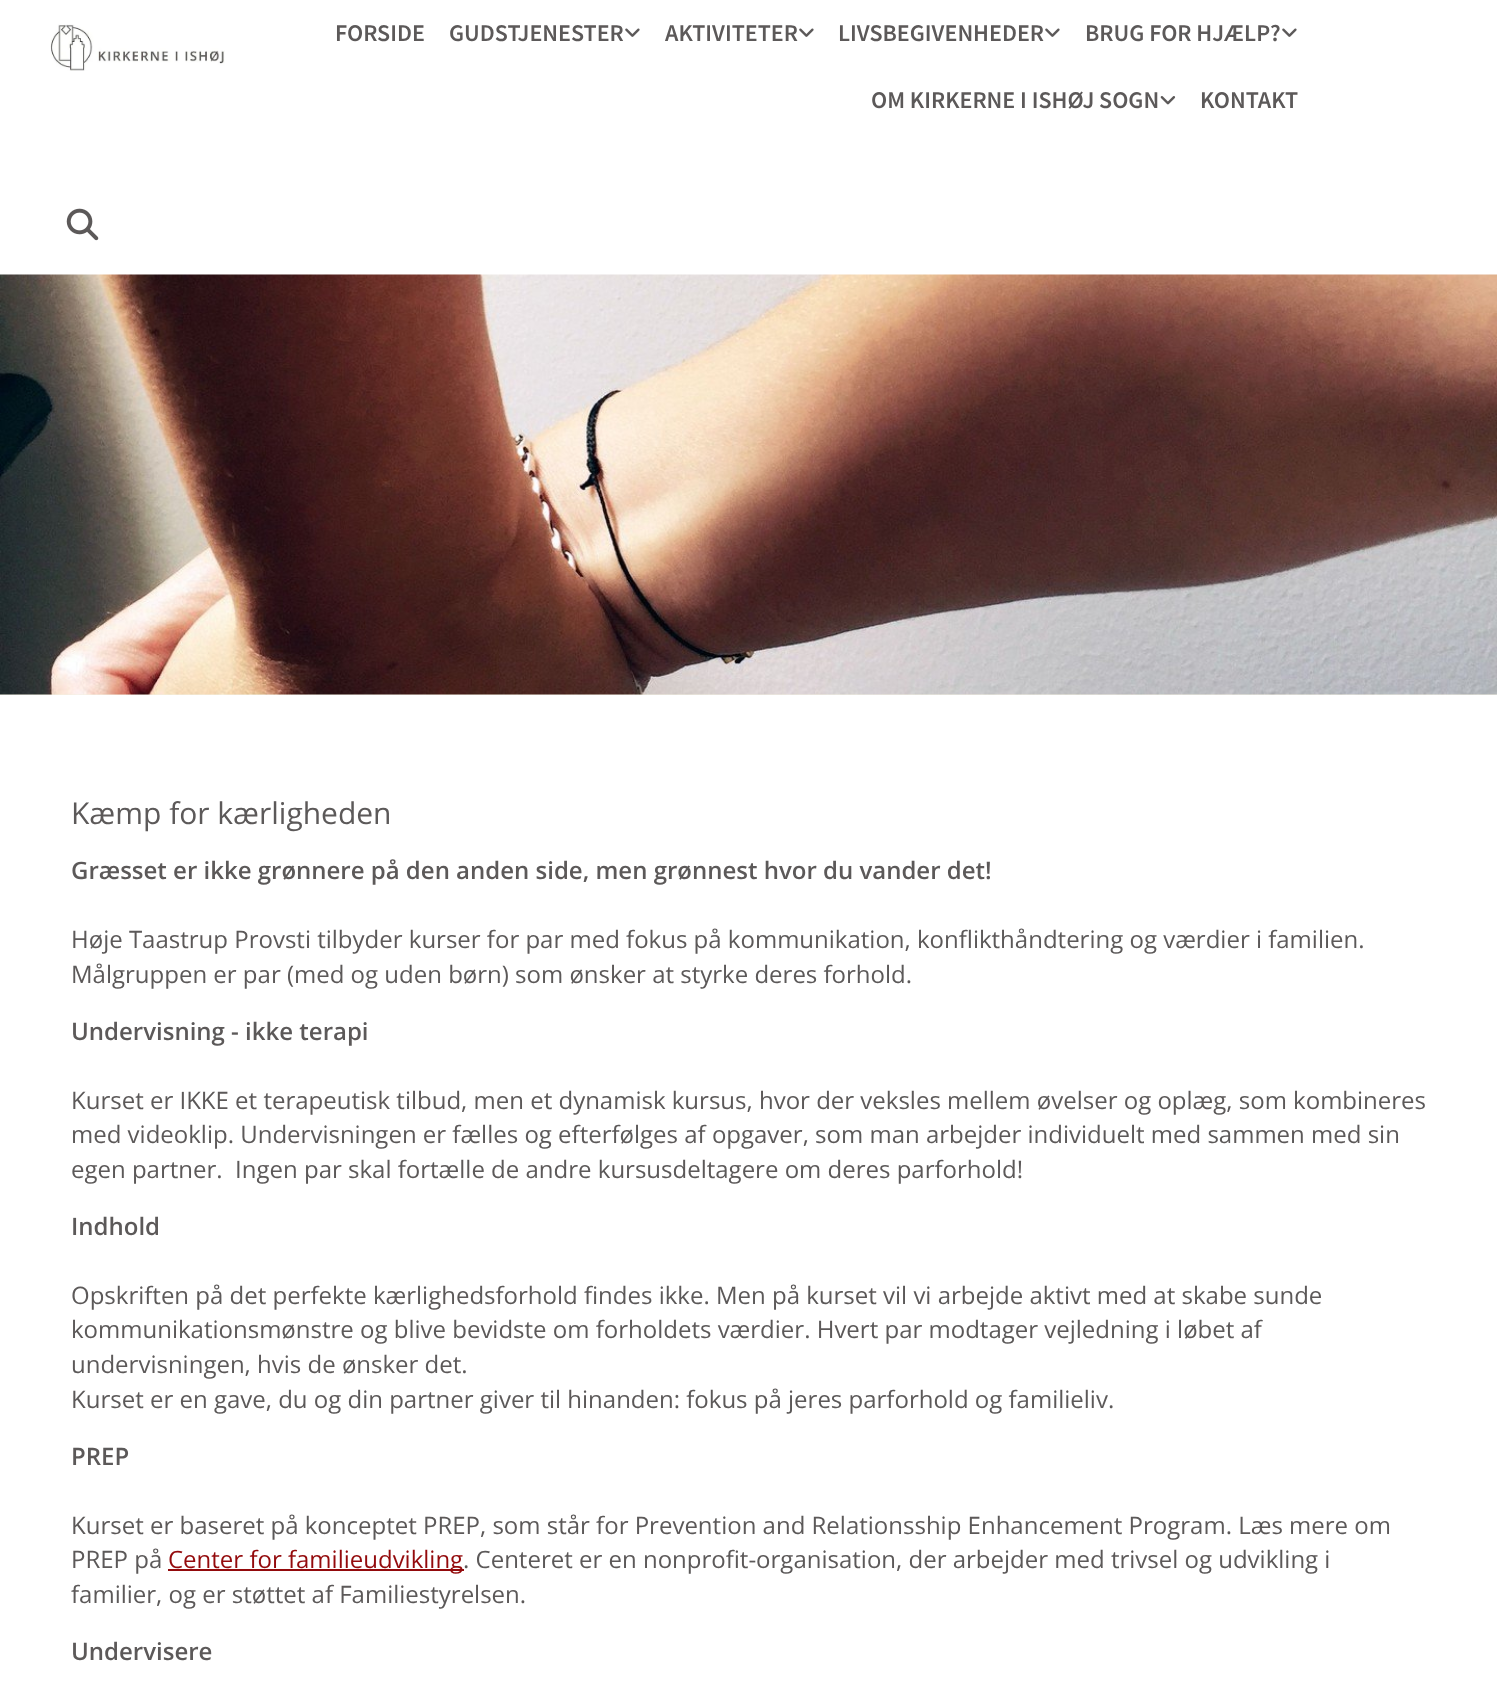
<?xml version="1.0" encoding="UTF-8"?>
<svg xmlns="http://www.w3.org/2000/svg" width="1497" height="1700">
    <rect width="100%" height="100%" fill="#FFFFFF"/>
    <image x="50" y="24" width="175" height="47" href="img_01.png"/>
    <text x="335" y="41" font-family="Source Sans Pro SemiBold" font-size="24" font-weight="600" fill="#5C5959">FORSIDE</text>
    <text x="449" y="41" font-family="Source Sans Pro SemiBold" font-size="24" font-weight="600" fill="#5C5959">GUDSTJENESTER</text>
    <image x="625" y="28" width="15" height="9" href="img_02.png"/>
    <text x="665" y="41" font-family="Source Sans Pro SemiBold" font-size="24" font-weight="600" fill="#5C5959">AKTIVITETER</text>
    <image x="799" y="28" width="15" height="9" href="img_02.png"/>
    <text x="838" y="41" font-family="Source Sans Pro SemiBold" font-size="24" font-weight="600" fill="#5C5959">LIVSBEGIVENHEDER</text>
    <image x="1045" y="28" width="15" height="9" href="img_02.png"/>
    <text x="1085" y="41" font-family="Source Sans Pro SemiBold" font-size="24" font-weight="600" fill="#5C5959">BRUG FOR HJÆLP?</text>
    <image x="1282" y="28" width="15" height="9" href="img_02.png"/>
    <text x="871" y="108" font-family="Source Sans Pro SemiBold" font-size="24" font-weight="600" fill="#5C5959">OM KIRKERNE I ISHØJ SOGN</text>
    <image x="1160" y="96" width="16" height="9" href="img_03.png"/>
    <text x="1200" y="108" font-family="Source Sans Pro SemiBold" font-size="24" font-weight="600" fill="#5C5959">KONTAKT</text>
    <image x="66" y="208" width="33" height="33" href="img_04.png"/>
    <rect x="0" y="694" width="1497" height="1" fill="#F2F0E3"/>
    <image x="0" y="274" width="1497" height="421" href="img_05.png"/>
    <text x="71" y="824" font-family="Open Sans" font-size="30" fill="#5C5959">Kæmp for kærligheden</text>
    <text x="71" y="879" font-family="Open Sans" font-size="24" font-weight="600" fill="#5C5959">Græsset er ikke grønnere på den anden side, men grønnest hvor du vander det!</text>
    <text font-family="Open Sans" font-size="24" fill="#5C5959">
        <tspan x="71" y="948">Høje Taastrup Provsti tilbyder kurser for par med fokus på kommunikation, konflikthåndtering og værdier i familien.</tspan>
        <tspan x="71" y="983">Målgruppen er par (med og uden børn) som ønsker at styrke deres forhold.</tspan>
    </text>
    <text x="71" y="1040" font-family="Open Sans" font-size="24" font-weight="600" fill="#5C5959">Undervisning - ikke terapi</text>
    <text font-family="Open Sans" font-size="24" fill="#5C5959" xml:space="preserve"><tspan x="71" y="1109">Kurset er IKKE et terapeutisk tilbud, men et dynamisk kursus, hvor der veksles mellem øvelser og oplæg, som kombineres</tspan><tspan x="71" y="1143">med videoklip. Undervisningen er fælles og efterfølges af opgaver, som man arbejder individuelt med sammen med sin</tspan><tspan x="71" y="1178">egen partner.  Ingen par skal fortælle de andre kursusdeltagere om deres parforhold!</tspan></text>
    <text x="71" y="1235" font-family="Open Sans" font-size="24" font-weight="600" fill="#5C5959">Indhold</text>
    <text font-family="Open Sans" font-size="24" fill="#5C5959">
        <tspan x="71" y="1304">Opskriften på det perfekte kærlighedsforhold findes ikke. Men på kurset vil vi arbejde aktivt med at skabe sunde</tspan>
        <tspan x="71" y="1338">kommunikationsmønstre og blive bevidste om forholdets værdier. Hvert par modtager vejledning i løbet af</tspan>
        <tspan x="71" y="1373">undervisningen, hvis de ønsker det.</tspan>
        <tspan x="71" y="1408">Kurset er en gave, du og din partner giver til hinanden: fokus på jeres parforhold og familieliv.</tspan>
    </text>
    <text x="71" y="1465" font-family="Open Sans" font-size="24" font-weight="600" fill="#5C5959">PREP</text>
    <text font-family="Open Sans" font-size="24" fill="#5C5959">
        <tspan x="71" y="1534">Kurset er baseret på konceptet PREP, som står for Prevention and Relationsship Enhancement Program. Læs mere om</tspan>
        <tspan x="71" y="1568">PREP på</tspan>
    </text>
    <rect x="168" y="1569" width="296" height="2" fill="#930A0C"/>
    <text x="168" y="1568" font-family="Open Sans" font-size="24" fill="#930A0C">Center for familieudvikling</text>
    <text x="463" y="1568" font-family="Open Sans" font-size="24" fill="#5C5959">. Centeret er en nonprofit-organisation, der arbejder med trivsel og udvikling i</text>
    <text x="71" y="1603" font-family="Open Sans" font-size="24" fill="#5C5959">familier, og er støttet af Familiestyrelsen.</text>
    <text x="71" y="1660" font-family="Open Sans" font-size="24" font-weight="600" fill="#5C5959">Undervisere</text>
</svg>
